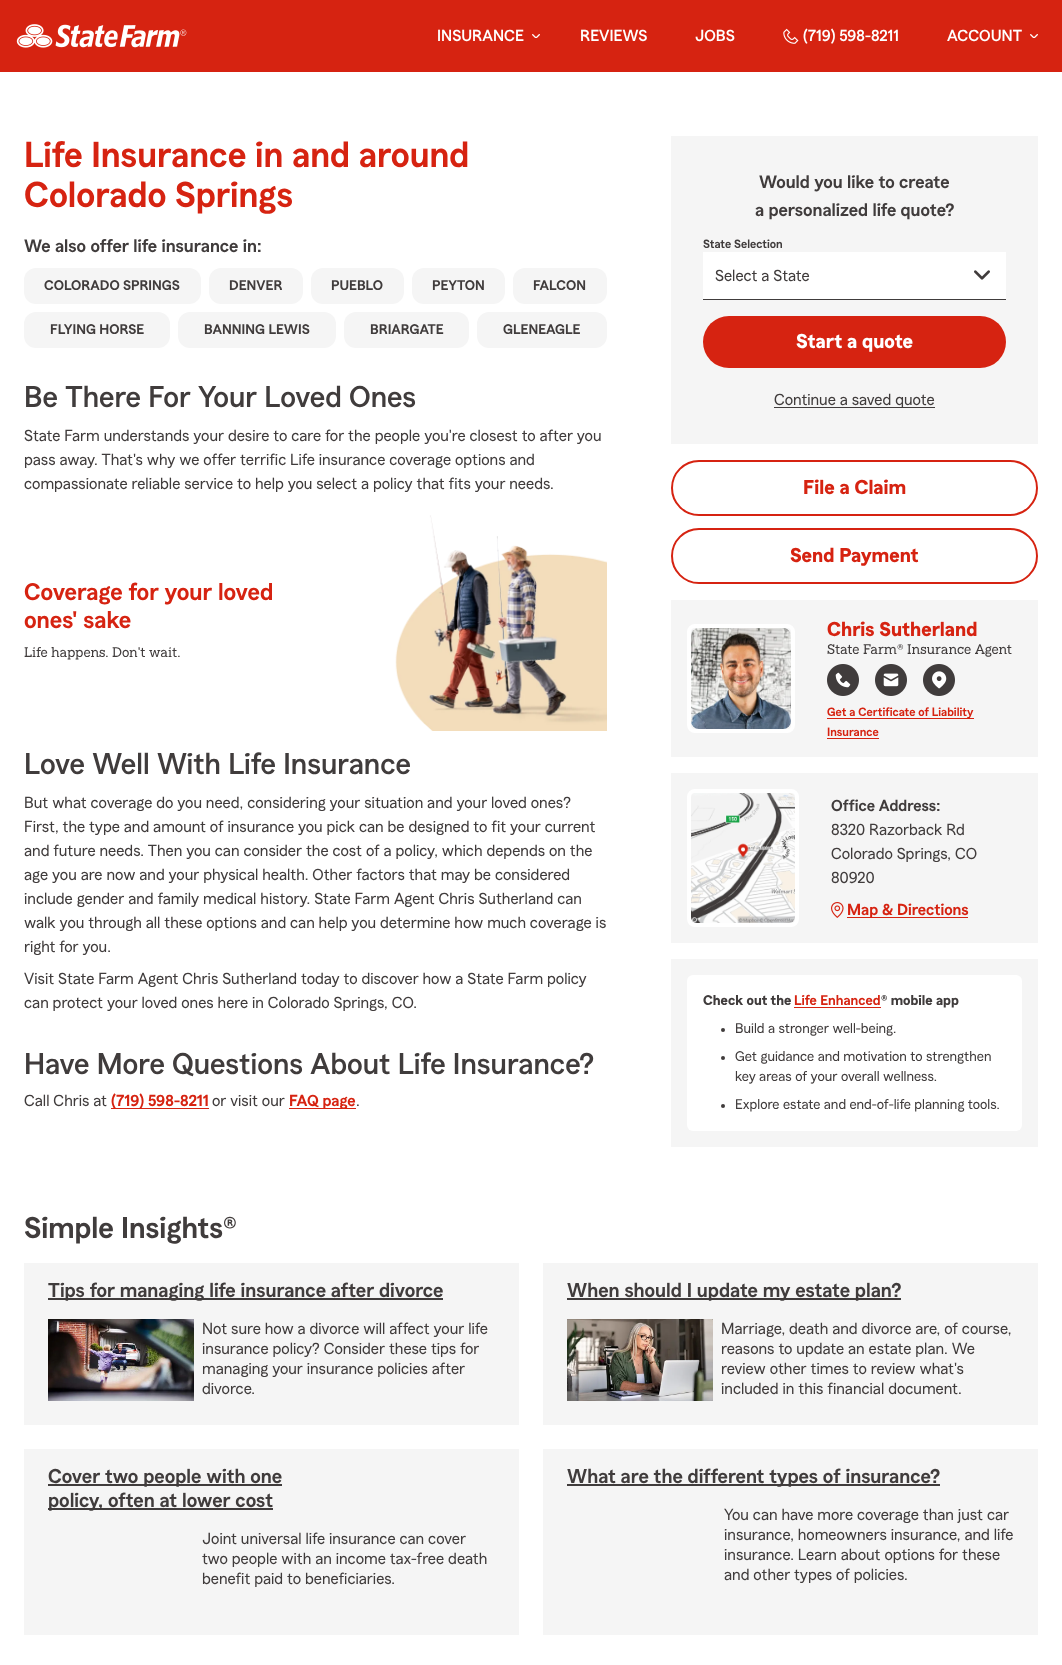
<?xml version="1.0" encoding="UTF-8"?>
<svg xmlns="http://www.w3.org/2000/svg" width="1062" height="1665">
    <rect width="100%" height="100%" fill="#FFFFFF"/>
    <rect x="0" y="0" width="1062" height="72" fill="#D62311"/>
    <image x="16" y="24" width="171" height="24" href="img_01.png"/>
    <text x="437" y="41" font-family="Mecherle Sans" font-size="16" font-weight="500" fill="#FFFFFF">INSURANCE</text>
    <image x="532" y="34" width="8" height="4" href="img_02.png"/>
    <text x="580" y="41" font-family="Mecherle Sans" font-size="16" font-weight="500" fill="#FFFFFF">REVIEWS</text>
    <text x="695" y="41" font-family="Mecherle Sans" font-size="16" font-weight="500" fill="#FFFFFF">JOBS</text>
    <image x="783" y="28" width="16" height="16" href="img_03.png"/>
    <text x="803" y="41" font-family="Mecherle Sans" font-size="16" font-weight="500" fill="#FFFFFF">(719) 598-8211</text>
    <text x="947" y="41" font-family="Mecherle Sans" font-size="16" font-weight="500" fill="#FFFFFF">ACCOUNT</text>
    <image x="1030" y="34" width="8" height="4" href="img_02.png"/>
    <text font-family="Mecherle Sans" font-size="36" font-weight="600" fill="#D62311">
        <tspan x="24" y="167">Life Insurance in and around</tspan>
        <tspan x="24" y="207">Colorado Springs</tspan>
    </text>
    <text x="24" y="252" font-family="Mecherle Sans" font-size="18" font-weight="600" fill="#403C3C">We also offer life insurance in:</text>
    <rect x="24" y="268" width="177" height="36" rx="12" fill="#F5F5F5"/>
    <text x="44" y="290" font-family="Mecherle Sans" font-size="14" font-weight="600" fill="#403C3C">COLORADO SPRINGS</text>
    <rect x="209" y="268" width="94" height="36" rx="12" fill="#F5F5F5"/>
    <text x="229" y="290" font-family="Mecherle Sans" font-size="14" font-weight="600" fill="#403C3C">DENVER</text>
    <rect x="311" y="268" width="93" height="36" rx="12" fill="#F5F5F5"/>
    <text x="331" y="290" font-family="Mecherle Sans" font-size="14" font-weight="600" fill="#403C3C">PUEBLO</text>
    <rect x="412" y="268" width="93" height="36" rx="12" fill="#F5F5F5"/>
    <text x="432" y="290" font-family="Mecherle Sans" font-size="14" font-weight="600" fill="#403C3C">PEYTON</text>
    <rect x="513" y="268" width="94" height="36" rx="12" fill="#F5F5F5"/>
    <text x="533" y="290" font-family="Mecherle Sans" font-size="14" font-weight="600" fill="#403C3C">FALCON</text>
    <rect x="24" y="312" width="146" height="36" rx="12" fill="#F5F5F5"/>
    <text x="50" y="334" font-family="Mecherle Sans" font-size="14" font-weight="600" fill="#403C3C">FLYING HORSE</text>
    <rect x="178" y="312" width="158" height="36" rx="12" fill="#F5F5F5"/>
    <text x="204" y="334" font-family="Mecherle Sans" font-size="14" font-weight="600" fill="#403C3C">BANNING LEWIS</text>
    <rect x="344" y="312" width="125" height="36" rx="12" fill="#F5F5F5"/>
    <text x="370" y="334" font-family="Mecherle Sans" font-size="14" font-weight="600" fill="#403C3C">BRIARGATE</text>
    <rect x="477" y="312" width="130" height="36" rx="12" fill="#F5F5F5"/>
    <text x="503" y="334" font-family="Mecherle Sans" font-size="14" font-weight="600" fill="#403C3C">GLENEAGLE</text>
    <text x="24" y="407" font-family="Mecherle Sans" font-size="30" font-weight="500" fill="#403C3C">Be There For Your Loved Ones</text>
    <text font-family="Mecherle Sans" font-size="16" fill="#403C3C">
        <tspan x="24" y="441">State Farm understands your desire to care for the people you're closest to after you</tspan>
        <tspan x="24" y="465">pass away. That's why we offer terrific Life insurance coverage options and</tspan>
        <tspan x="24" y="489">compassionate reliable service to help you select a policy that fits your needs.</tspan>
    </text>
    <text font-family="Mecherle Sans" font-size="24" font-weight="600" fill="#D62311">
        <tspan x="24" y="600">Coverage for your loved</tspan>
        <tspan x="24" y="628">ones' sake</tspan>
    </text>
    <text x="24" y="657" font-family="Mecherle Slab" font-size="14" fill="#403C3C">Life happens. Don't wait.</text>
    <image x="395" y="515" width="212" height="216" href="img_04.png"/>
    <text x="24" y="774" font-family="Mecherle Sans" font-size="30" font-weight="500" fill="#403C3C">Love Well With Life Insurance</text>
    <text font-family="Mecherle Sans" font-size="16" fill="#403C3C">
        <tspan x="24" y="808">But what coverage do you need, considering your situation and your loved ones?</tspan>
        <tspan x="24" y="832">First, the type and amount of insurance you pick can be designed to fit your current</tspan>
        <tspan x="24" y="856">and future needs. Then you can consider the cost of a policy, which depends on the</tspan>
        <tspan x="24" y="880">age you are now and your physical health. Other factors that may be considered</tspan>
        <tspan x="24" y="904">include gender and family medical history. State Farm Agent Chris Sutherland can</tspan>
        <tspan x="24" y="928">walk you through all these options and can help you determine how much coverage is</tspan>
        <tspan x="24" y="952">right for you.</tspan>
    </text>
    <text font-family="Mecherle Sans" font-size="16" fill="#403C3C">
        <tspan x="24" y="984">Visit State Farm Agent Chris Sutherland today to discover how a State Farm policy</tspan>
        <tspan x="24" y="1008">can protect your loved ones here in Colorado Springs, CO.</tspan>
    </text>
    <text x="24" y="1074" font-family="Mecherle Sans" font-size="30" font-weight="500" fill="#403C3C">Have More Questions About Life Insurance?</text>
    <text x="24" y="1106" font-family="Mecherle Sans" font-size="16" fill="#403C3C">Call Chris at</text>
    <rect x="111" y="1108" width="98" height="1" fill="#D62311"/>
    <text x="111" y="1106" font-family="Mecherle Sans" font-size="16" font-weight="600" fill="#D62311">(719) 598-8211</text>
    <text x="212" y="1106" font-family="Mecherle Sans" font-size="16" fill="#403C3C">or visit our</text>
    <rect x="289" y="1108" width="67" height="1" fill="#D62311"/>
    <text x="289" y="1106" font-family="Mecherle Sans" font-size="16" font-weight="600" fill="#D62311">FAQ page</text>
    <text x="356" y="1106" font-family="Mecherle Sans" font-size="16" fill="#403C3C">.</text>
    <rect x="671" y="136" width="367" height="308" fill="#F5F5F5"/>
    <text x="759" y="188" font-family="Mecherle Sans" font-size="18" font-weight="600" fill="#403C3C">Would you like to create</text>
    <text x="755" y="216" font-family="Mecherle Sans" font-size="18" font-weight="600" fill="#403C3C">a personalized life quote?</text>
    <rect x="703" y="299" width="303" height="1" fill="#403C3C"/>
    <text x="703" y="248" font-family="Mecherle Sans" font-size="12" font-weight="600" fill="#403C3C">State Selection</text>
    <rect x="703" y="252" width="303" height="47" fill="#FFFFFF"/>
    <text x="715" y="281" font-family="Mecherle Sans" font-size="16" fill="#403C3C">Select a State</text>
    <image x="974" y="270" width="16" height="10" href="img_05.png"/>
    <rect x="703" y="316" width="303" height="52" rx="26" fill="#D62311"/>
    <text x="796" y="348" font-family="Mecherle Sans" font-size="20" font-weight="700" fill="#FFFFFF">Start a quote</text>
    <rect x="774" y="407" width="161" height="1" fill="#403C3C"/>
    <text x="774" y="405" font-family="Mecherle Sans" font-size="16" fill="#403C3C">Continue a saved quote</text>
    <rect x="672" y="461" width="365" height="54" rx="27" fill="none" stroke="#D62311" stroke-width="2"/>
    <text x="803" y="494" font-family="Mecherle Sans" font-size="20" font-weight="700" fill="#D62311">File a Claim</text>
    <rect x="672" y="529" width="365" height="54" rx="27" fill="none" stroke="#D62311" stroke-width="2"/>
    <text x="790" y="562" font-family="Mecherle Sans" font-size="20" font-weight="700" fill="#D62311">Send Payment</text>
    <rect x="671" y="600" width="367" height="157" fill="#F5F5F5"/>
    <rect x="689" y="626" width="104" height="105" rx="6" fill="none" stroke="#FFFFFF" stroke-width="4"/>
    <image x="691" y="628" width="100" height="101" href="img_06.png"/>
    <text x="827" y="636" font-family="Mecherle Sans" font-size="20" font-weight="700" fill="#D62311">Chris Sutherland</text>
    <text x="827" y="654" font-family="Mecherle Slab" font-size="14" fill="#403C3C">State Farm® Insurance Agent</text>
    <image x="827" y="664" width="32" height="32" href="img_07.png"/>
    <image x="875" y="664" width="32" height="32" href="img_08.png"/>
    <image x="923" y="664" width="32" height="32" href="img_09.png"/>
    <rect x="827" y="718" width="147" height="1" fill="#D62311"/>
    <text font-family="Mecherle Sans" font-size="12" font-weight="600" fill="#D62311">
        <tspan x="827" y="716">Get a Certificate of Liability</tspan>
        <tspan x="827" y="736">Insurance</tspan>
    </text>
    <rect x="827" y="738" width="52" height="1" fill="#D62311"/>
    <rect x="671" y="773" width="367" height="170" fill="#F5F5F5"/>
    <rect x="689" y="791" width="108" height="134" rx="6" fill="none" stroke="#FFFFFF" stroke-width="4"/>
    <image x="691" y="793" width="104" height="130" href="img_10.png"/>
    <text x="831" y="811" font-family="Mecherle Sans" font-size="16" font-weight="600" fill="#403C3C">Office Address:</text>
    <text font-family="Mecherle Sans" font-size="16" fill="#403C3C">
        <tspan x="831" y="835">8320 Razorback Rd</tspan>
        <tspan x="831" y="859">Colorado Springs, CO</tspan>
        <tspan x="831" y="883">80920</tspan>
    </text>
    <image x="831" y="902" width="13" height="16" href="img_11.png"/>
    <rect x="847" y="917" width="121" height="1" fill="#D62311"/>
    <text x="847" y="915" font-family="Mecherle Sans" font-size="16" font-weight="600" fill="#D62311">Map &amp; Directions</text>
    <rect x="671" y="959" width="367" height="188" fill="#F5F5F5"/>
    <rect x="687" y="975" width="335" height="156" rx="6" fill="#FFFFFF"/>
    <text x="703" y="1005" font-family="Mecherle Sans" font-size="14" font-weight="700" fill="#403C3C">Check out the</text>
    <text x="794" y="1005" font-family="Mecherle Sans" font-size="14" font-weight="600" fill="#D62311">Life Enhanced</text>
    <text x="881" y="1005" font-family="Mecherle Sans" font-size="14" font-weight="700" fill="#403C3C">® mobile app</text>
    <rect x="794" y="1007" width="87" height="1" fill="#D62311"/>
    <circle cx="723" cy="1030" r="2" fill="#403C3C"/>
    <text x="735" y="1033" font-family="Mecherle Sans" font-size="14" fill="#403C3C">Build a stronger well-being.</text>
    <circle cx="723" cy="1058" r="2" fill="#403C3C"/>
    <text font-family="Mecherle Sans" font-size="14" fill="#403C3C">
        <tspan x="735" y="1061">Get guidance and motivation to strengthen</tspan>
        <tspan x="735" y="1081">key areas of your overall wellness.</tspan>
    </text>
    <circle cx="723" cy="1106" r="2" fill="#403C3C"/>
    <text x="735" y="1109" font-family="Mecherle Sans" font-size="14" fill="#403C3C">Explore estate and end-of-life planning tools.</text>
    <text x="24" y="1238" font-family="Mecherle Sans" font-size="30" font-weight="600" fill="#403C3C">Simple Insights®</text>
    <rect x="24" y="1263" width="495" height="162" fill="#F5F5F5"/>
    <rect x="48" y="1298" width="395" height="2" fill="#403C3C"/>
    <text x="48" y="1297" font-family="Mecherle Sans" font-size="20" font-weight="600" fill="#403C3C">Tips for managing life insurance after divorce</text>
    <image x="48" y="1319" width="146" height="82" href="img_12.png"/>
    <text font-family="Mecherle Sans" font-size="16" fill="#403C3C">
        <tspan x="202" y="1334">Not sure how a divorce will affect your life</tspan>
        <tspan x="202" y="1354">insurance policy? Consider these tips for</tspan>
        <tspan x="202" y="1374">managing your insurance policies after</tspan>
        <tspan x="202" y="1394">divorce.</tspan>
    </text>
    <rect x="543" y="1263" width="495" height="162" fill="#F5F5F5"/>
    <rect x="567" y="1298" width="334" height="2" fill="#403C3C"/>
    <text x="567" y="1297" font-family="Mecherle Sans" font-size="20" font-weight="600" fill="#403C3C">When should I update my estate plan?</text>
    <image x="567" y="1319" width="146" height="82" href="img_13.png"/>
    <text font-family="Mecherle Sans" font-size="16" fill="#403C3C">
        <tspan x="721" y="1334">Marriage, death and divorce are, of course,</tspan>
        <tspan x="721" y="1354">reasons to update an estate plan. We</tspan>
        <tspan x="721" y="1374">review other times to review what's</tspan>
        <tspan x="721" y="1394">included in this financial document.</tspan>
    </text>
    <rect x="24" y="1449" width="495" height="186" fill="#F5F5F5"/>
    <rect x="48" y="1484" width="234" height="2" fill="#403C3C"/>
    <text x="48" y="1483" font-family="Mecherle Sans" font-size="20" font-weight="600" fill="#403C3C">Cover two people with one</text>
    <rect x="48" y="1508" width="225" height="2" fill="#403C3C"/>
    <text x="48" y="1507" font-family="Mecherle Sans" font-size="20" font-weight="600" fill="#403C3C">policy, often at lower cost</text>
    <text font-family="Mecherle Sans" font-size="16" fill="#403C3C">
        <tspan x="202" y="1544">Joint universal life insurance can cover</tspan>
        <tspan x="202" y="1564">two people with an income tax-free death</tspan>
        <tspan x="202" y="1584">benefit paid to beneficiaries.</tspan>
    </text>
    <rect x="543" y="1449" width="495" height="186" fill="#F5F5F5"/>
    <rect x="567" y="1484" width="373" height="2" fill="#403C3C"/>
    <text x="567" y="1483" font-family="Mecherle Sans" font-size="20" font-weight="600" fill="#403C3C">What are the different types of insurance?</text>
    <text font-family="Mecherle Sans" font-size="16" fill="#403C3C">
        <tspan x="724" y="1520">You can have more coverage than just car</tspan>
        <tspan x="724" y="1540">insurance, homeowners insurance, and life</tspan>
        <tspan x="724" y="1560">insurance. Learn about options for these</tspan>
        <tspan x="724" y="1580">and other types of policies.</tspan>
    </text>
</svg>
